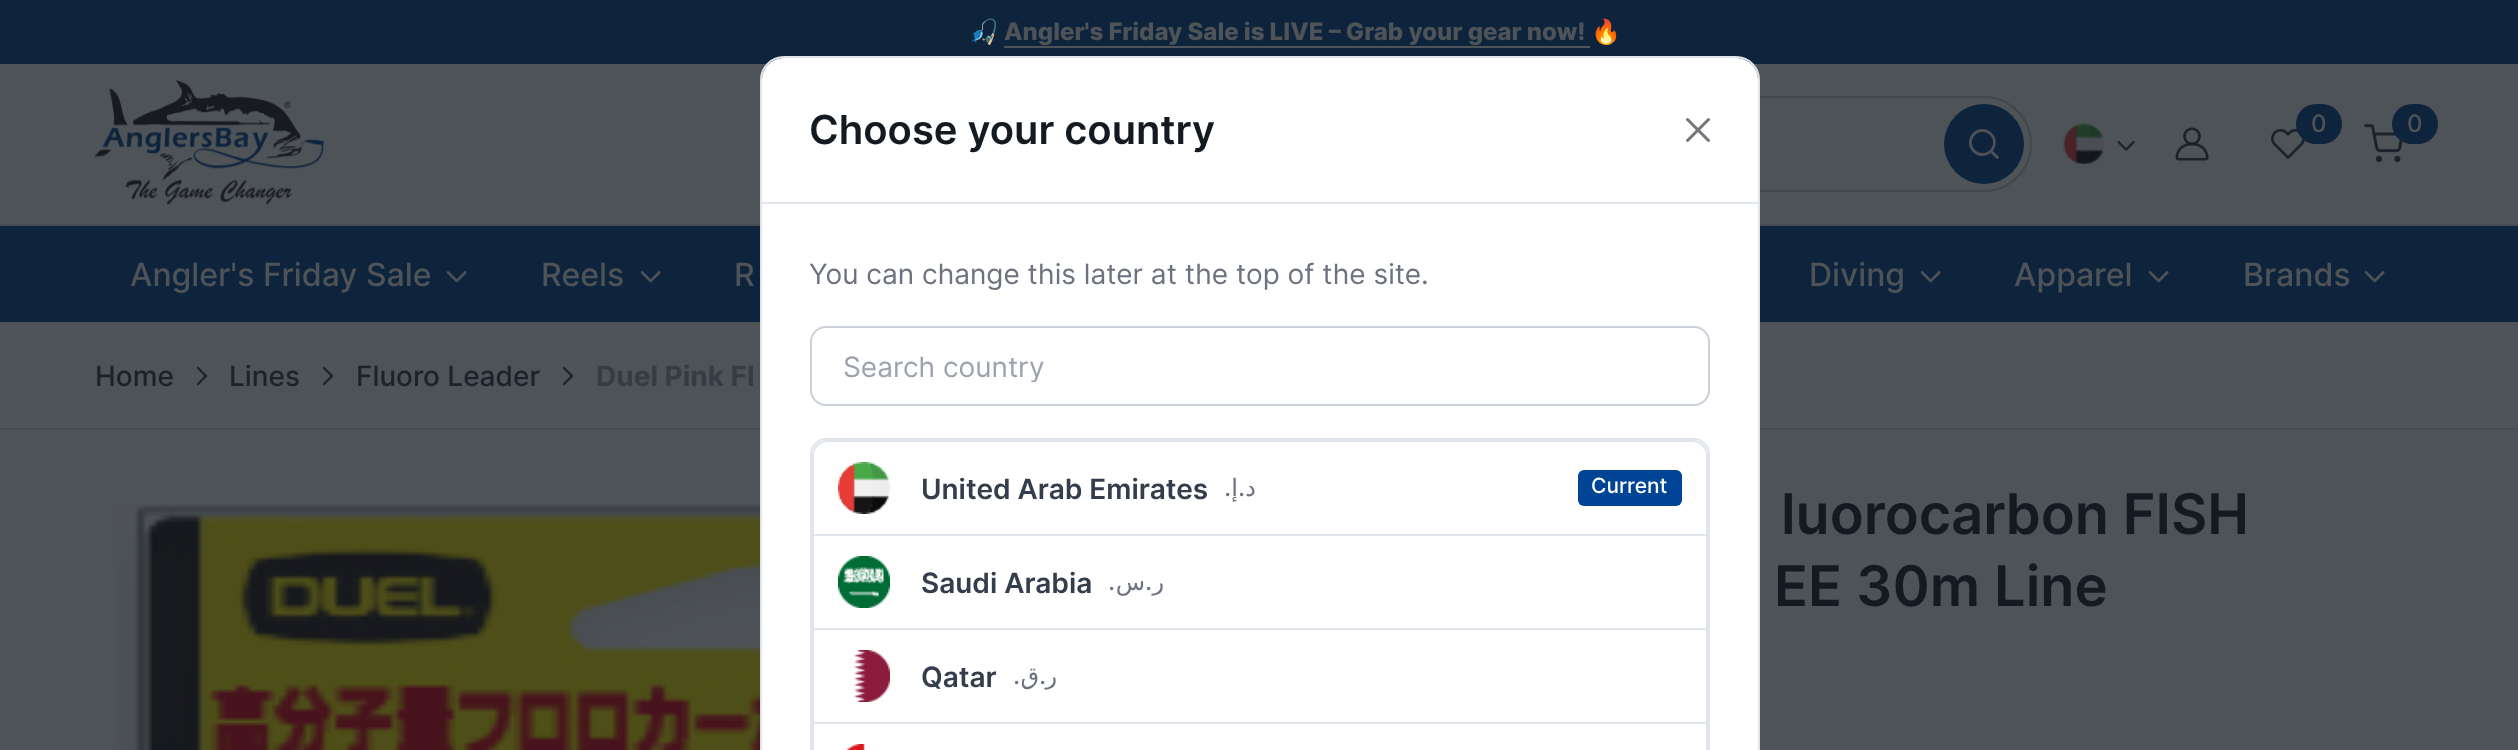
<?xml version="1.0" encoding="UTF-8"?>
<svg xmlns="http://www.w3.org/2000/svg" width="2518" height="750">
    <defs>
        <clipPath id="clip1"><rect x="844" y="348" width="832" height="34"/></clipPath>
    </defs>
    <rect width="100%" height="100%" fill="#4E5358"/>
    <rect x="0" y="0" width="2518" height="64" fill="#0E243D"/>
    <text x="969" y="40" font-family="Noto Color Emoji" font-size="24" font-weight="700" fill="#4E5358">🎣</text>
    <text x="1004" y="40" font-family="Inter" font-size="24" font-weight="800" fill="#4E5358">Angler's Friday Sale is LIVE – Grab your gear now!</text>
    <rect x="1004" y="46" width="586" height="2" fill="#4E5358"/>
    <text x="1591" y="40" font-family="Noto Color Emoji" font-size="24" font-weight="700" fill="#4E5358">🔥</text>
    <image x="94" y="80" width="230" height="125" href="img_01.png"/>
    <rect x="1033" y="97" width="998" height="94" rx="47" fill="none" stroke="#41474E" stroke-width="2"/>
    <circle cx="1984" cy="144" r="40" fill="#0E243D"/>
    <image x="1969" y="129" width="30" height="30" href="img_02.png"/>
    <image x="2063" y="123" width="41" height="41" href="img_03.png"/>
    <image x="2117" y="141" width="18" height="10" href="img_04.png"/>
    <image x="2175" y="127" width="34" height="34" href="img_05.png"/>
    <image x="2271" y="129" width="34" height="30" href="img_06.png"/>
    <rect x="2296" y="104" width="46" height="40" rx="20" fill="#0E243D"/>
    <text x="2311" y="132" font-family="Inter" font-size="24" font-weight="500" fill="#4E5358">0</text>
    <image x="2364" y="124" width="39" height="39" href="img_07.png"/>
    <rect x="2392" y="104" width="46" height="40" rx="20" fill="#0E243D"/>
    <text x="2407" y="132" font-family="Inter" font-size="24" font-weight="500" fill="#4E5358">0</text>
    <rect x="0" y="226" width="2518" height="96" fill="#0E243D"/>
    <rect x="0" y="224" width="2518" height="2" fill="#464C53"/>
    <text x="130" y="286" font-family="Inter" font-size="32" font-weight="500" fill="#4E5358">Angler's Friday Sale</text>
    <image x="446" y="271" width="21" height="12" href="img_08.png"/>
    <text x="541" y="286" font-family="Inter" font-size="32" font-weight="500" fill="#4E5358">Reels</text>
    <image x="640" y="271" width="21" height="12" href="img_08.png"/>
    <text x="734" y="286" font-family="Inter" font-size="32" font-weight="500" fill="#4E5358">R</text>
    <text x="1809" y="286" font-family="Inter" font-size="32" font-weight="500" fill="#4E5358">Diving</text>
    <image x="1920" y="271" width="21" height="12" href="img_08.png"/>
    <text x="2014" y="286" font-family="Inter" font-size="32" font-weight="500" fill="#4E5358">Apparel</text>
    <image x="2148" y="271" width="21" height="12" href="img_08.png"/>
    <text x="2243" y="286" font-family="Inter" font-size="32" font-weight="500" fill="#4E5358">Brands</text>
    <image x="2364" y="271" width="21" height="12" href="img_08.png"/>
    <rect x="0" y="428" width="2518" height="2" fill="#464C53"/>
    <path d="M 784 58 H 1736 C 1748 58 1758 68 1758 80 V 750 H 762 V 80 C 762 68 772 58 784 58 Z" fill="#FFFFFF"/>
    <rect x="761" y="57" width="998" height="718" rx="23" fill="none" stroke="#E0E5EB" stroke-width="2"/>
    <rect x="762" y="202" width="996" height="2" fill="#E0E5EB"/>
    <text x="809" y="144" font-family="Inter" font-size="40" font-weight="600" fill="#141A21">Choose your country</text>
    <image x="1686" y="118" width="24" height="24" href="img_09.png"/>
    <text x="809" y="284" font-family="Inter" font-size="28" fill="#6C727F">You can change this later at the top of the site.</text>
    <rect x="811" y="327" width="898" height="78" rx="15" fill="none" stroke="#CAD0D9" stroke-width="2"/>
    <g clip-path="url(#clip1)">
        <text x="843" y="377" font-family="Inter" font-size="28" fill="#9CA3AF">Search country</text>
    </g>
    <rect x="811" y="439" width="898" height="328" rx="15" fill="none" stroke="#E0E5EB" stroke-width="2"/>
    <path d="M 828 441 H 1692 C 1700.5 441 1707 447.5 1707 456 V 535 H 813 V 456 C 813 447.5 819.5 441 828 441 Z" fill="none" stroke="#E0E5EB" stroke-width="2"/>
    <image x="838" y="462" width="52" height="52" href="img_10.png"/>
    <text x="921" y="499" font-family="Inter" font-size="28" font-weight="600" fill="#333D4C">United Arab Emirates</text>
    <text x="1231" y="496" font-family="Inter" font-size="24" font-weight="500" direction="rtl" fill="#6C727F">.</text>
    <text x="1238" y="496" font-family="DejaVu Sans" font-size="24" direction="rtl" fill="#6C727F">إ</text>
    <text x="1245" y="496" font-family="Inter" font-size="24" font-weight="500" direction="rtl" fill="#6C727F">.</text>
    <text x="1256" y="496" font-family="DejaVu Sans" font-size="24" direction="rtl" fill="#6C727F">د</text>
    <rect x="1578" y="470" width="104" height="36" rx="6" fill="#004595"/>
    <text x="1591" y="493" font-family="Inter" font-size="21" font-weight="500" fill="#FFFFFF">Current</text>
    <rect x="1706" y="536" width="2" height="214" fill="#E0E5EB"/>
    <rect x="812" y="628" width="896" height="2" fill="#E0E5EB"/>
    <rect x="812" y="536" width="2" height="94" fill="#E0E5EB"/>
    <image x="838" y="556" width="52" height="52" href="img_11.png"/>
    <text x="921" y="593" font-family="Inter" font-size="28" font-weight="600" fill="#333D4C">Saudi Arabia</text>
    <text x="1115" y="590" font-family="Inter" font-size="24" font-weight="500" direction="rtl" fill="#6C727F">.</text>
    <text x="1145" y="590" font-family="DejaVu Sans" font-size="24" direction="rtl" fill="#6C727F">س</text>
    <text x="1152" y="590" font-family="Inter" font-size="24" font-weight="500" direction="rtl" fill="#6C727F">.</text>
    <text x="1164" y="590" font-family="DejaVu Sans" font-size="24" direction="rtl" fill="#6C727F">ر</text>
    <rect x="812" y="722" width="896" height="2" fill="#E0E5EB"/>
    <rect x="812" y="630" width="2" height="120" fill="#E0E5EB"/>
    <image x="854" y="650" width="36" height="52" href="img_12.png"/>
    <text x="921" y="687" font-family="Inter" font-size="28" font-weight="600" fill="#333D4C">Qatar</text>
    <text x="1020" y="684" font-family="Inter" font-size="24" font-weight="500" direction="rtl" fill="#6C727F">.</text>
    <text x="1039" y="684" font-family="DejaVu Sans" font-size="24" direction="rtl" fill="#6C727F">ق</text>
    <text x="1046" y="684" font-family="Inter" font-size="24" font-weight="500" direction="rtl" fill="#6C727F">.</text>
    <text x="1057" y="684" font-family="DejaVu Sans" font-size="24" direction="rtl" fill="#6C727F">ر</text>
    <image x="846" y="744" width="19" height="6" href="img_13.png"/>
    <text x="95" y="386" font-family="Inter" font-size="28" font-weight="500" fill="#1B222B">Home</text>
    <image x="196" y="366" width="12" height="20" href="img_14.png"/>
    <text x="229" y="386" font-family="Inter" font-size="28" font-weight="500" fill="#1B222B">Lines</text>
    <image x="322" y="366" width="12" height="20" href="img_14.png"/>
    <text x="356" y="386" font-family="Inter" font-size="28" font-weight="500" fill="#1B222B">Fluoro Leader</text>
    <image x="562" y="366" width="12" height="20" href="img_14.png"/>
    <text x="596" y="386" font-family="Inter" font-size="28" font-weight="700" fill="#353C44">Duel Pink Fl</text>
    <image x="113" y="504" width="647" height="246" href="img_15.png"/>
    <text x="1781" y="534" font-family="Inter" font-size="56" font-weight="600" fill="#141A21">luorocarbon FISH</text>
    <text x="1774" y="606" font-family="Inter" font-size="56" font-weight="600" fill="#141A21">EE 30m Line</text>
</svg>
